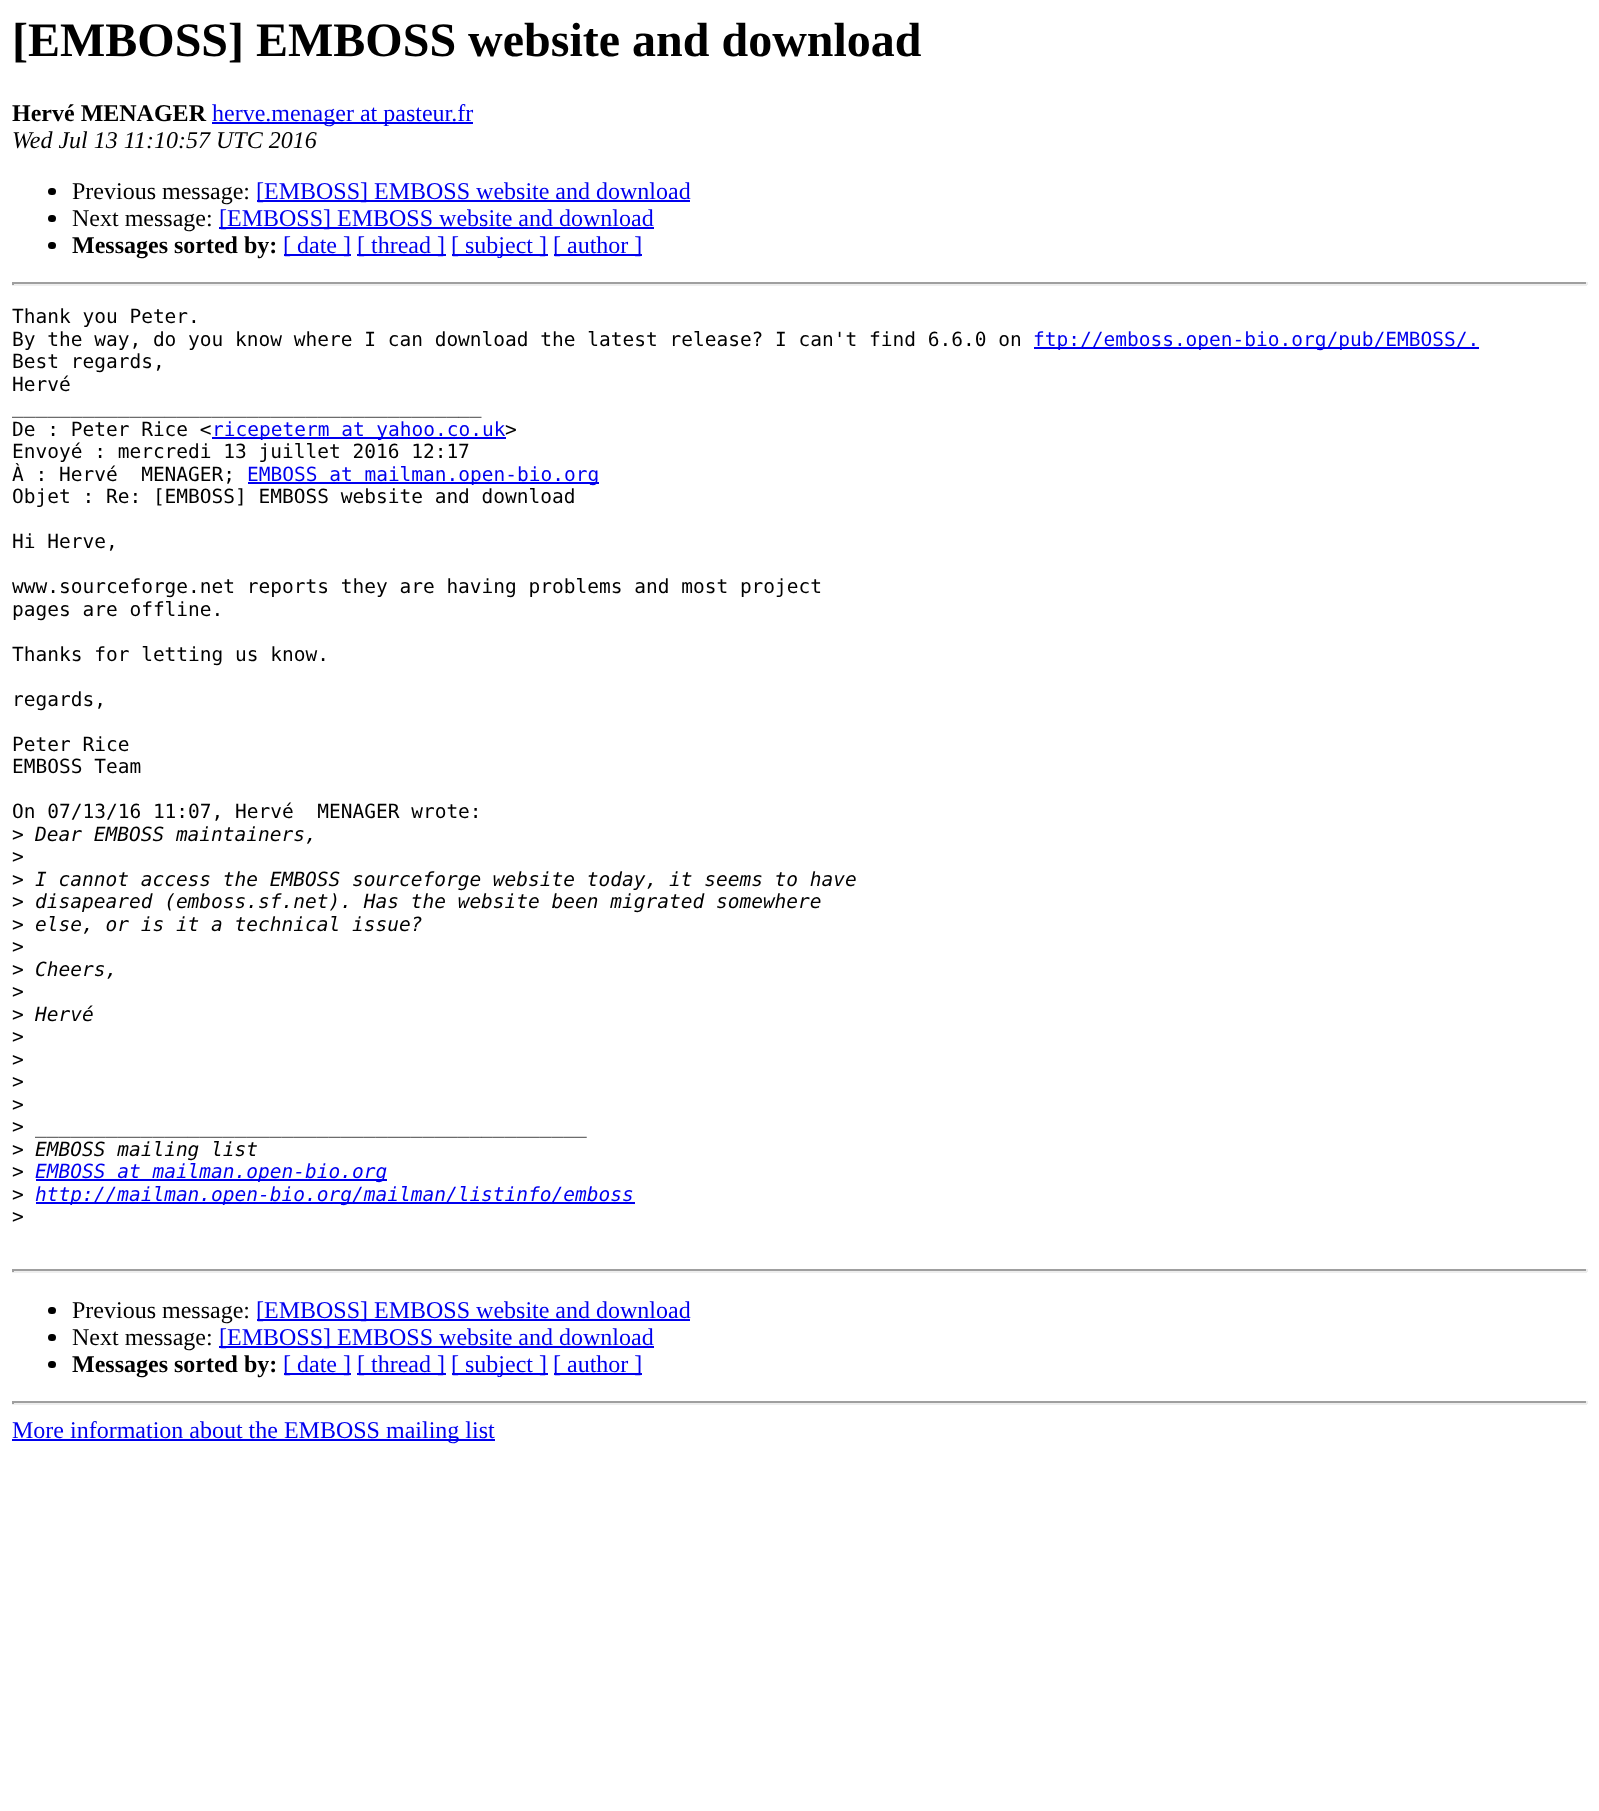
<?xml version="1.0" encoding="UTF-8"?>
<svg xmlns="http://www.w3.org/2000/svg" width="1599" height="1811">
    <rect width="100%" height="100%" fill="#FFFFFF"/>
    <text x="12" y="56" font-family="Liberation Serif" font-size="48" font-weight="700" fill="#000000">[EMBOSS] EMBOSS website and download</text>
    <text x="12" y="121" font-family="Liberation Serif" font-size="24" font-weight="700" fill="#000000">Hervé MENAGER</text>
    <rect x="212" y="122" width="261" height="2" fill="#0000EE"/>
    <text x="212" y="121" font-family="Liberation Serif" font-size="24" fill="#0000EE">herve.menager at pasteur.fr</text>
    <text x="12" y="148" font-family="Liberation Serif" font-size="24" font-style="italic" fill="#000000">Wed Jul 13 11:10:57 UTC 2016</text>
    <rect x="48" y="188" width="8" height="7" rx="3.5" fill="#000000"/>
    <text x="72" y="199" font-family="Liberation Serif" font-size="24" fill="#000000">Previous message:</text>
    <rect x="257" y="200" width="433" height="2" fill="#0000EE"/>
    <text x="256" y="199" font-family="Liberation Serif" font-size="24" fill="#0000EE">[EMBOSS] EMBOSS website and download</text>
    <rect x="48" y="215" width="8" height="7" rx="3.5" fill="#000000"/>
    <text x="72" y="226" font-family="Liberation Serif" font-size="24" fill="#000000">Next message:</text>
    <rect x="219" y="227" width="435" height="2" fill="#0000EE"/>
    <text x="219" y="226" font-family="Liberation Serif" font-size="24" fill="#0000EE">[EMBOSS] EMBOSS website and download</text>
    <rect x="48" y="242" width="8" height="7" rx="3.5" fill="#000000"/>
    <text x="72" y="253" font-family="Liberation Serif" font-size="24" font-weight="700" fill="#000000">Messages sorted by:</text>
    <rect x="284" y="254" width="67" height="2" fill="#0000EE"/>
    <text x="283" y="253" font-family="Liberation Serif" font-size="24" fill="#0000EE">[ date ]</text>
    <rect x="357" y="254" width="89" height="2" fill="#0000EE"/>
    <text x="357" y="253" font-family="Liberation Serif" font-size="24" fill="#0000EE">[ thread ]</text>
    <rect x="452" y="254" width="96" height="2" fill="#0000EE"/>
    <text x="451" y="253" font-family="Liberation Serif" font-size="24" fill="#0000EE">[ subject ]</text>
    <rect x="554" y="254" width="88" height="2" fill="#0000EE"/>
    <text x="553" y="253" font-family="Liberation Serif" font-size="24" fill="#0000EE">[ author ]</text>
    <rect x="12" y="282" width="1575" height="2" fill="#9F9F9F"/>
    <rect x="1586" y="282" width="2" height="3" fill="#EEEEEE"/>
    <rect x="12" y="284" width="1575" height="2" fill="#EEEEEE"/>
    <rect x="12" y="282" width="2" height="3" fill="#9F9F9F"/>
    <text font-family="DejaVu Sans Mono" font-size="19.5" fill="#000000">
        <tspan x="12" y="323">Thank you Peter.</tspan>
        <tspan x="12" y="346">By the way, do you know where I can download the latest release? I can't find 6.6.0 on</tspan>
    </text>
    <rect x="1034" y="347" width="445" height="2" fill="#0000EE"/>
    <text x="1033" y="346" font-family="DejaVu Sans Mono" font-size="19.5" fill="#0000EE">ftp://emboss.open-bio.org/pub/EMBOSS/.</text>
    <text font-family="DejaVu Sans Mono" font-size="19.5" fill="#000000">
        <tspan x="12" y="368">Best regards,</tspan>
        <tspan x="12" y="391">Hervé</tspan>
        <tspan x="12" y="413">________________________________________</tspan>
        <tspan x="12" y="436">De : Peter Rice &lt;</tspan>
    </text>
    <rect x="212" y="437" width="294" height="2" fill="#0000EE"/>
    <text x="212" y="436" font-family="DejaVu Sans Mono" font-size="19.5" fill="#0000EE">ricepeterm at yahoo.co.uk</text>
    <text x="505" y="436" font-family="DejaVu Sans Mono" font-size="19.5" fill="#000000">&gt;</text>
    <text font-family="DejaVu Sans Mono" font-size="19.5" fill="#000000" xml:space="preserve"><tspan x="12" y="458">Envoyé : mercredi 13 juillet 2016 12:17</tspan><tspan x="12" y="481">À : Hervé  MENAGER;</tspan></text>
    <rect x="248" y="482" width="351" height="2" fill="#0000EE"/>
    <text x="247" y="481" font-family="DejaVu Sans Mono" font-size="19.5" fill="#0000EE">EMBOSS at mailman.open-bio.org</text>
    <text x="12" y="503" font-family="DejaVu Sans Mono" font-size="19.5" fill="#000000">Objet : Re: [EMBOSS] EMBOSS website and download</text>
    <text x="12" y="548" font-family="DejaVu Sans Mono" font-size="19.5" fill="#000000">Hi Herve,</text>
    <text font-family="DejaVu Sans Mono" font-size="19.5" fill="#000000">
        <tspan x="12" y="593">www.sourceforge.net reports they are having problems and most project</tspan>
        <tspan x="12" y="616">pages are offline.</tspan>
    </text>
    <text x="12" y="661" font-family="DejaVu Sans Mono" font-size="19.5" fill="#000000">Thanks for letting us know.</text>
    <text x="12" y="706" font-family="DejaVu Sans Mono" font-size="19.5" fill="#000000">regards,</text>
    <text font-family="DejaVu Sans Mono" font-size="19.5" fill="#000000">
        <tspan x="12" y="751">Peter Rice</tspan>
        <tspan x="12" y="773">EMBOSS Team</tspan>
    </text>
    <text font-family="DejaVu Sans Mono" font-size="19.5" fill="#000000" xml:space="preserve"><tspan x="12" y="818">On 07/13/16 11:07, Hervé  MENAGER wrote:</tspan><tspan x="12" y="841">&gt;</tspan></text>
    <text x="35" y="841" font-family="DejaVu Sans Mono" font-size="19.5" font-style="italic" fill="#000000">Dear EMBOSS maintainers,</text>
    <text font-family="DejaVu Sans Mono" font-size="19.5" fill="#000000">
        <tspan x="12" y="863">&gt;</tspan>
        <tspan x="12" y="886">&gt;</tspan>
    </text>
    <text x="35" y="886" font-family="DejaVu Sans Mono" font-size="19.5" font-style="italic" fill="#000000">I cannot access the EMBOSS sourceforge website today, it seems to have</text>
    <text x="12" y="908" font-family="DejaVu Sans Mono" font-size="19.5" fill="#000000">&gt;</text>
    <text x="35" y="908" font-family="DejaVu Sans Mono" font-size="19.5" font-style="italic" fill="#000000">disapeared (emboss.sf.net). Has the website been migrated somewhere</text>
    <text x="12" y="931" font-family="DejaVu Sans Mono" font-size="19.5" fill="#000000">&gt;</text>
    <text x="35" y="931" font-family="DejaVu Sans Mono" font-size="19.5" font-style="italic" fill="#000000">else, or is it a technical issue?</text>
    <text font-family="DejaVu Sans Mono" font-size="19.5" fill="#000000">
        <tspan x="12" y="953">&gt;</tspan>
        <tspan x="12" y="976">&gt;</tspan>
    </text>
    <text x="35" y="976" font-family="DejaVu Sans Mono" font-size="19.5" font-style="italic" fill="#000000">Cheers,</text>
    <text font-family="DejaVu Sans Mono" font-size="19.5" fill="#000000">
        <tspan x="12" y="998">&gt;</tspan>
        <tspan x="12" y="1021">&gt;</tspan>
    </text>
    <text x="35" y="1021" font-family="DejaVu Sans Mono" font-size="19.5" font-style="italic" fill="#000000">Hervé</text>
    <text font-family="DejaVu Sans Mono" font-size="19.5" fill="#000000">
        <tspan x="12" y="1043">&gt;</tspan>
        <tspan x="12" y="1066">&gt;</tspan>
        <tspan x="12" y="1088">&gt;</tspan>
        <tspan x="12" y="1111">&gt;</tspan>
        <tspan x="12" y="1133">&gt;</tspan>
    </text>
    <text x="35" y="1133" font-family="DejaVu Sans Mono" font-size="19.5" font-style="italic" fill="#000000">_______________________________________________</text>
    <text x="12" y="1156" font-family="DejaVu Sans Mono" font-size="19.5" fill="#000000">&gt;</text>
    <text x="35" y="1156" font-family="DejaVu Sans Mono" font-size="19.5" font-style="italic" fill="#000000">EMBOSS mailing list</text>
    <text x="12" y="1178" font-family="DejaVu Sans Mono" font-size="19.5" fill="#000000">&gt;</text>
    <rect x="36" y="1179" width="351" height="2" fill="#0000EE"/>
    <text x="35" y="1178" font-family="DejaVu Sans Mono" font-size="19.5" font-style="italic" fill="#0000EE">EMBOSS at mailman.open-bio.org</text>
    <text x="12" y="1201" font-family="DejaVu Sans Mono" font-size="19.5" fill="#000000">&gt;</text>
    <rect x="36" y="1202" width="599" height="2" fill="#0000EE"/>
    <text x="35" y="1201" font-family="DejaVu Sans Mono" font-size="19.5" font-style="italic" fill="#0000EE">http://mailman.open-bio.org/mailman/listinfo/emboss</text>
    <text x="12" y="1223" font-family="DejaVu Sans Mono" font-size="19.5" fill="#000000">&gt;</text>
    <rect x="12" y="1269" width="1575" height="2" fill="#9F9F9F"/>
    <rect x="1586" y="1269" width="2" height="3" fill="#EEEEEE"/>
    <rect x="12" y="1271" width="1575" height="2" fill="#EEEEEE"/>
    <rect x="12" y="1269" width="2" height="3" fill="#9F9F9F"/>
    <rect x="48" y="1307" width="8" height="7" rx="3.5" fill="#000000"/>
    <text x="72" y="1318" font-family="Liberation Serif" font-size="24" fill="#000000">Previous message:</text>
    <rect x="257" y="1319" width="433" height="2" fill="#0000EE"/>
    <text x="256" y="1318" font-family="Liberation Serif" font-size="24" fill="#0000EE">[EMBOSS] EMBOSS website and download</text>
    <rect x="48" y="1334" width="8" height="7" rx="3.5" fill="#000000"/>
    <text x="72" y="1345" font-family="Liberation Serif" font-size="24" fill="#000000">Next message:</text>
    <rect x="219" y="1346" width="435" height="2" fill="#0000EE"/>
    <text x="219" y="1345" font-family="Liberation Serif" font-size="24" fill="#0000EE">[EMBOSS] EMBOSS website and download</text>
    <rect x="48" y="1361" width="8" height="7" rx="3.5" fill="#000000"/>
    <text x="72" y="1372" font-family="Liberation Serif" font-size="24" font-weight="700" fill="#000000">Messages sorted by:</text>
    <rect x="284" y="1373" width="67" height="2" fill="#0000EE"/>
    <text x="283" y="1372" font-family="Liberation Serif" font-size="24" fill="#0000EE">[ date ]</text>
    <rect x="357" y="1373" width="89" height="2" fill="#0000EE"/>
    <text x="357" y="1372" font-family="Liberation Serif" font-size="24" fill="#0000EE">[ thread ]</text>
    <rect x="452" y="1373" width="96" height="2" fill="#0000EE"/>
    <text x="451" y="1372" font-family="Liberation Serif" font-size="24" fill="#0000EE">[ subject ]</text>
    <rect x="554" y="1373" width="88" height="2" fill="#0000EE"/>
    <text x="553" y="1372" font-family="Liberation Serif" font-size="24" fill="#0000EE">[ author ]</text>
    <rect x="12" y="1401" width="1575" height="2" fill="#9F9F9F"/>
    <rect x="1586" y="1401" width="2" height="3" fill="#EEEEEE"/>
    <rect x="12" y="1403" width="1575" height="2" fill="#EEEEEE"/>
    <rect x="12" y="1401" width="2" height="3" fill="#9F9F9F"/>
    <rect x="12" y="1439" width="483" height="2" fill="#0000EE"/>
    <text x="12" y="1438" font-family="Liberation Serif" font-size="24" fill="#0000EE">More information about the EMBOSS mailing list</text>
</svg>
